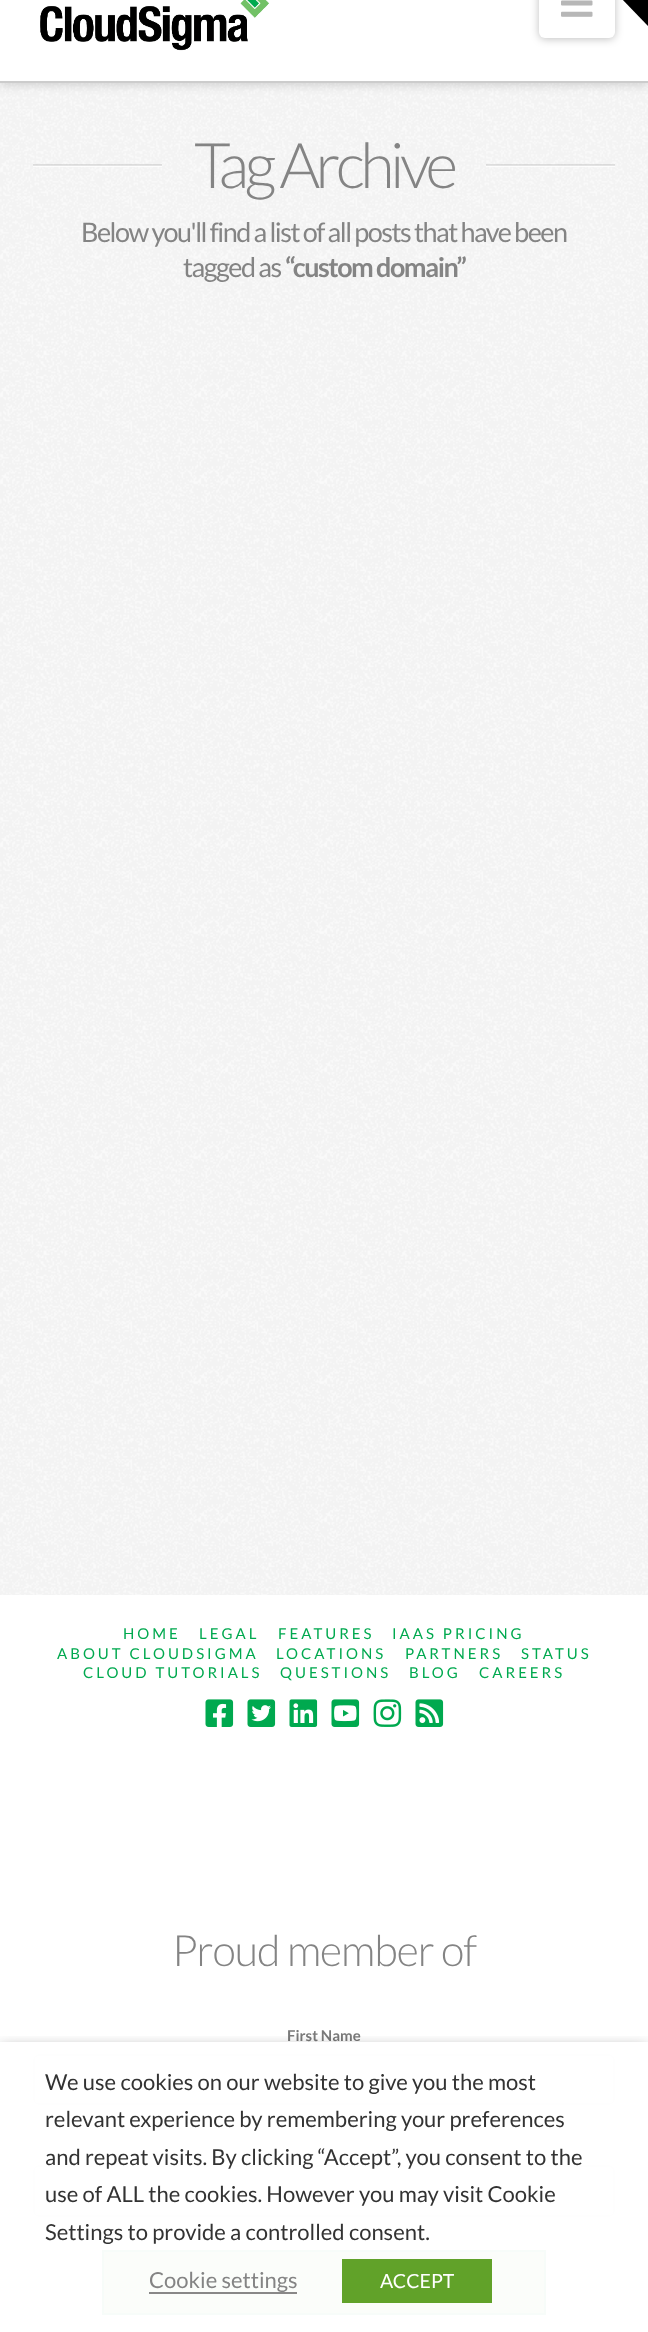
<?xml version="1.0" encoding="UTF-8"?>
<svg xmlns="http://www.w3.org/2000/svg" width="648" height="2332">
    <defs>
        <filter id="blur1" x="-50%" y="-200%" width="200%" height="500%"><feGaussianBlur stdDeviation="4"/></filter>
        <clipPath id="clip1"><rect x="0" y="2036" width="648" height="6"/></clipPath>
        <filter id="blur2" x="-50%" y="-200%" width="200%" height="500%"><feGaussianBlur stdDeviation="7.5"/></filter>
    </defs>
    <rect width="100%" height="100%" fill="#FFFFFF"/>
    <image x="0" y="83" width="648" height="1512" href="img_01.png"/>
    <rect x="0" y="-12" width="648" height="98" fill="#000000" fill-opacity="0.13" filter="url(#blur1)"/>
    <rect x="0" y="0" width="648" height="81" fill="#FFFFFF"/>
    <rect x="539" y="-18" width="76" height="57" rx="6" fill="#000000" fill-opacity="0.25" filter="url(#blur1)"/>
    <path d="M 648 -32 V 26 L 620 -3 Z" fill="#000000"/>
    <rect x="0" y="81" width="648" height="2" fill="#CCCCCC"/>
    <image x="40" y="0" width="229" height="51" href="img_02.png"/>
    <rect x="539" y="-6" width="76" height="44" rx="6" fill="#FFFFFF"/>
    <image x="561" y="0" width="32" height="17" href="img_03.png"/>
    <rect x="33" y="165" width="129" height="2" fill="#FFFFFF" fill-opacity="0.8"/>
    <rect x="33" y="164" width="129" height="2" fill="#000000" fill-opacity="0.1"/>
    <text x="194" y="188" font-family="Lato" font-size="63" font-weight="300" letter-spacing="-4.5" fill="#848484">Tag Archive</text>
    <rect x="486" y="165" width="129" height="2" fill="#FFFFFF" fill-opacity="0.8"/>
    <rect x="486" y="164" width="129" height="2" fill="#000000" fill-opacity="0.1"/>
    <text x="81" y="242" font-family="Lato" font-size="27" letter-spacing="-1.5" fill="#848484">Below you'll find a list of all posts that have been</text>
    <text x="183" y="277" font-family="Lato" font-size="27" letter-spacing="-1.5" fill="#848484">tagged as</text>
    <text x="285" y="277" font-family="Lato" font-size="27" font-weight="700" letter-spacing="-1.5" fill="#848484">“custom domain”</text>
    <text x="123" y="1639" font-family="Lato" font-size="15" letter-spacing="3" fill="#00A94F">HOME</text>
    <text x="199" y="1639" font-family="Lato" font-size="15" letter-spacing="3" fill="#00A94F">LEGAL</text>
    <text x="278" y="1639" font-family="Lato" font-size="15" letter-spacing="3" fill="#00A94F">FEATURES</text>
    <text x="392" y="1639" font-family="Lato" font-size="15" letter-spacing="3" fill="#00A94F">IAAS PRICING</text>
    <text x="57" y="1659" font-family="Lato" font-size="15" letter-spacing="3" fill="#00A94F">ABOUT CLOUDSIGMA</text>
    <text x="276" y="1659" font-family="Lato" font-size="15" letter-spacing="3" fill="#00A94F">LOCATIONS</text>
    <text x="405" y="1659" font-family="Lato" font-size="15" letter-spacing="3" fill="#00A94F">PARTNERS</text>
    <text x="521" y="1659" font-family="Lato" font-size="15" letter-spacing="3" fill="#00A94F">STATUS</text>
    <text x="83" y="1678" font-family="Lato" font-size="15" letter-spacing="3" fill="#00A94F">CLOUD TUTORIALS</text>
    <text x="280" y="1678" font-family="Lato" font-size="15" letter-spacing="3" fill="#00A94F">QUESTIONS</text>
    <text x="409" y="1678" font-family="Lato" font-size="15" letter-spacing="3" fill="#00A94F">BLOG</text>
    <text x="479" y="1678" font-family="Lato" font-size="15" letter-spacing="3" fill="#00A94F">CAREERS</text>
    <image x="205" y="1699" width="29" height="28" href="img_04.png"/>
    <image x="247" y="1699" width="29" height="28" href="img_05.png"/>
    <image x="289" y="1699" width="29" height="28" href="img_06.png"/>
    <image x="331" y="1699" width="29" height="28" href="img_07.png"/>
    <image x="373" y="1699" width="29" height="28" href="img_08.png"/>
    <image x="415" y="1699" width="29" height="28" href="img_09.png"/>
    <text x="172" y="1966" font-family="Lato" font-size="43" font-weight="300" letter-spacing="-1" fill="#848484">Proud member of</text>
    <text x="287" y="2041" font-family="Lato" font-size="15" font-weight="700" fill="#7A7A7A">First Name</text>
    <path d="M 39 2056 H 609 C 611 2056 614 2059 614 2061 V 2060 C 614 2057 612 2055 609 2055 H 40 C 38 2055 36 2056 35 2058 C 36 2057 38 2056 39 2056 Z" fill="#ECECEC"/>
    <rect x="34" y="2055" width="580" height="49" rx="5" fill="none" stroke="#DDDDDD" stroke-width="2"/>
    <path d="M 39 2168 H 609 C 611 2168 614 2170 614 2172 V 2171 C 614 2168 612 2166 609 2166 H 40 C 38 2166 36 2168 35 2170 C 36 2169 38 2168 39 2168 Z" fill="#ECECEC"/>
    <rect x="34" y="2166" width="580" height="50" rx="5" fill="none" stroke="#DDDDDD" stroke-width="2"/>
    <rect x="103" y="2251" width="442" height="63" fill="#73C167" stroke="#00A94F" stroke-width="2"/>
    <g clip-path="url(#clip1)">
        <rect x="0" y="2049" width="648" height="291" fill="#000000" fill-opacity="0.5" filter="url(#blur2)"/>
    </g>
    <rect x="33" y="2054" width="582" height="261" fill="#FFFFFF" fill-opacity="0.97"/>
    <text font-family="Lato" font-size="22" fill="#333333">
        <tspan x="45" y="2090">We use cookies on our website to give you the most</tspan>
        <tspan x="45" y="2127">relevant experience by remembering your preferences</tspan>
        <tspan x="45" y="2165">and repeat visits. By clicking “Accept”, you consent to the</tspan>
        <tspan x="45" y="2202">use of ALL the cookies. However you may visit Cookie</tspan>
        <tspan x="45" y="2240">Settings to provide a controlled consent.</tspan>
    </text>
    <text x="149" y="2288" font-family="Lato" font-size="22" fill="#848484">Cookie settings</text>
    <rect x="149" y="2292" width="148" height="2" fill="#898888"/>
    <rect x="342" y="2259" width="150" height="44" fill="#61A229"/>
    <text x="380" y="2288" font-family="Lato" font-size="19.5" fill="#FFFFFF">ACCEPT</text>
</svg>
